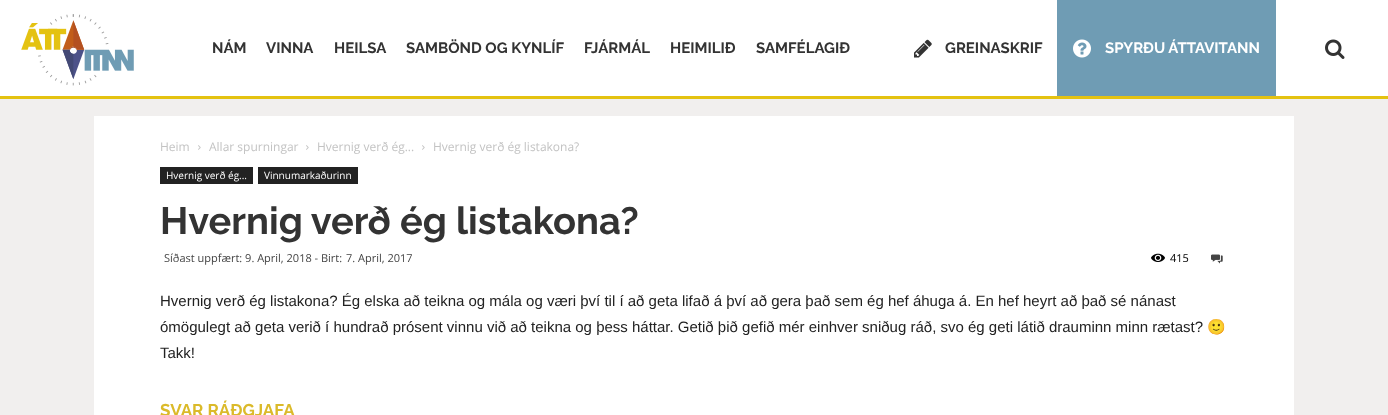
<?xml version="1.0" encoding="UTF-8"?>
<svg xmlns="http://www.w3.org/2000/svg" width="1388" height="415">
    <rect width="100%" height="100%" fill="#F1EFEE"/>
    <rect x="0" y="0" width="1388" height="96" fill="#FFFFFF"/>
    <rect x="0" y="96" width="1388" height="3" fill="#E4C211"/>
    <image x="21" y="14" width="113" height="72" href="img_01.png"/>
    <text x="212" y="53" font-family="Raleway" font-size="15" font-weight="100" fill="#333333">NÁM</text>
    <text x="266" y="53" font-family="Raleway" font-size="15" font-weight="100" fill="#333333">VINNA</text>
    <text x="334" y="53" font-family="Raleway" font-size="15" font-weight="100" fill="#333333">HEILSA</text>
    <text x="406" y="53" font-family="Raleway" font-size="15" font-weight="100" fill="#333333">SAMBÖND OG KYNLÍF</text>
    <text x="584" y="53" font-family="Raleway" font-size="15" font-weight="100" fill="#333333">FJÁRMÁL</text>
    <text x="670" y="53" font-family="Raleway" font-size="15" font-weight="100" fill="#333333">HEIMILIÐ</text>
    <text x="756" y="53" font-family="Raleway" font-size="15" font-weight="100" fill="#333333">SAMFÉLAGIÐ</text>
    <image x="914" y="39" width="18" height="19" href="img_02.png"/>
    <text x="945" y="53" font-family="Raleway" font-size="15" font-weight="100" fill="#333333">GREINASKRIF</text>
    <rect x="1057" y="0" width="219" height="96" fill="#6F9CB4"/>
    <image x="1073" y="39" width="18" height="19" href="img_03.png"/>
    <text x="1105" y="53" font-family="Raleway" font-size="15" font-weight="100" fill="#FFFFFF">SPYRÐU ÁTTAVITANN</text>
    <image x="1325" y="39" width="20" height="20" href="img_04.png"/>
    <rect x="94" y="116" width="1200" height="299" fill="#FFFFFF"/>
    <text x="160" y="151" font-family="Open Sans" font-size="12" fill="#C3C3C3">Heim</text>
    <image x="198" y="145" width="3" height="5" href="img_05.png"/>
    <text x="209" y="151" font-family="Open Sans" font-size="12" fill="#C3C3C3">Allar spurningar</text>
    <image x="306" y="145" width="3" height="5" href="img_05.png"/>
    <text x="317" y="151" font-family="Open Sans" font-size="12" fill="#C3C3C3">Hvernig verð ég...</text>
    <image x="422" y="145" width="3" height="5" href="img_05.png"/>
    <text x="433" y="151" font-family="Open Sans" font-size="12" fill="#C3C3C3">Hvernig verð ég listakona?</text>
    <rect x="160" y="167" width="93" height="17" fill="#222222"/>
    <text x="166" y="179" font-family="Open Sans" font-size="10" fill="#FFFFFF">Hvernig verð ég...</text>
    <rect x="258" y="167" width="100" height="17" fill="#222222"/>
    <text x="264" y="179" font-family="Open Sans" font-size="10" fill="#FFFFFF">Vinnumarkaðurinn</text>
    <text x="160" y="234" font-family="Raleway" font-size="38" font-weight="100" fill="#333333">Hvernig verð ég listakona?</text>
    <text x="164" y="262" font-family="Open Sans" font-size="11" fill="#444444">Síðast uppfært: 9. April, 2018 - Birt:</text>
    <text x="346" y="262" font-family="Open Sans" font-size="11" fill="#444444">7. April, 2017</text>
    <image x="1151" y="253" width="14" height="9" href="img_06.png"/>
    <text x="1170" y="262" font-family="Open Sans" font-size="11" fill="#000000">415</text>
    <image x="1211" y="254" width="12" height="10" href="img_07.png"/>
    <text font-family="Liberation Sans" font-size="15" fill="#222222">
        <tspan x="160" y="306">Hvernig verð ég listakona? Ég elska að teikna og mála og væri því til í að geta lifað á því að gera það sem ég hef áhuga á. En hef heyrt að það sé nánast</tspan>
        <tspan x="160" y="332">ómögulegt að geta verið í hundrað prósent vinnu við að teikna og þess háttar. Getið þið gefið mér einhver sniðug ráð, svo ég geti látið drauminn minn rætast?</tspan>
    </text>
    <text x="1207" y="332" font-family="Noto Color Emoji" font-size="15" fill="#222222">🙂</text>
    <text x="160" y="358" font-family="Liberation Sans" font-size="15" fill="#222222">Takk!</text>
    <text x="160" y="416" font-family="Raleway" font-size="17" font-weight="100" fill="#DBBA2A">SVAR RÁÐGJAFA</text>
</svg>
